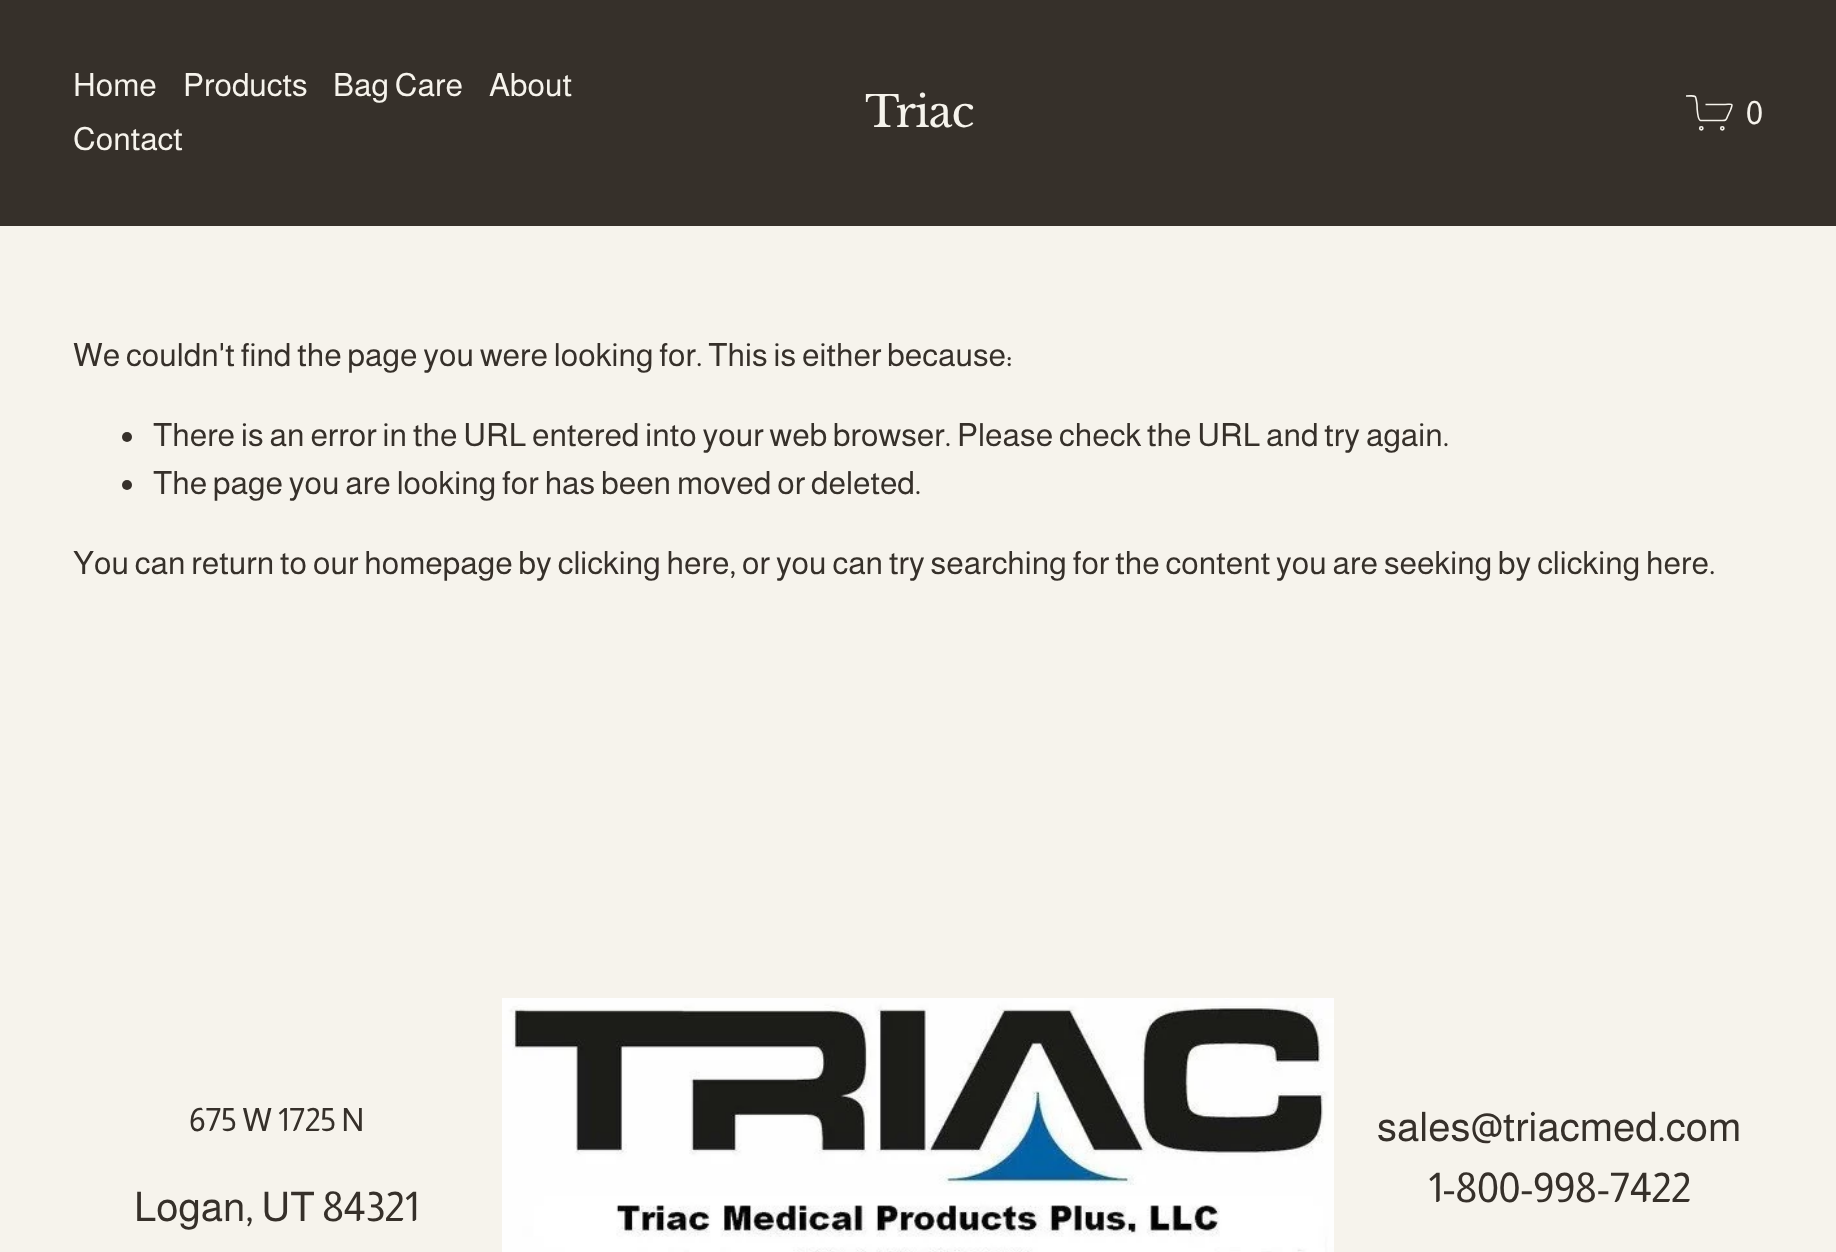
<?xml version="1.0" encoding="UTF-8"?>
<svg xmlns="http://www.w3.org/2000/svg" width="1836" height="1252">
    <rect width="100%" height="100%" fill="#F6F3EC"/>
    <rect x="0" y="0" width="1836" height="226" fill="#36302A"/>
    <text x="73" y="96" font-family="Almarai" font-size="32" fill="#F6F3EC">Home</text>
    <text x="183" y="96" font-family="Almarai" font-size="32" fill="#F6F3EC">Products</text>
    <text x="333" y="96" font-family="Almarai" font-size="32" fill="#F6F3EC">Bag Care</text>
    <text x="489" y="96" font-family="Almarai" font-size="32" fill="#F6F3EC">About</text>
    <text x="73" y="150" font-family="Almarai" font-size="32" fill="#F6F3EC">Contact</text>
    <text x="865" y="127" font-family="Libre Baskerville" font-size="43" letter-spacing="-1" fill="#F6F3EC">Triac</text>
    <circle cx="1722.3" cy="128.3" r="1.6" fill="none" stroke="#F6F3EC" stroke-width="1.6"/>
    <circle cx="1701.3" cy="128.3" r="1.6" fill="none" stroke="#F6F3EC" stroke-width="1.6"/>
    <path d="M 1686 96 C 1696.5 96 1695.5 94 1697 104.5 C 1697 107 1697.5 120 1700.5 120.5 H 1720.5 C 1725.5 120.5 1726 121 1727.5 116.5 L 1730.5 110 C 1733.5 102 1732.5 104.5 1722.5 104.5 H 1705.5" fill="none" stroke="#F6F3EC" stroke-width="1.6"/>
    <text x="1746" y="124" font-family="Almarai" font-size="32" fill="#F6F3EC">0</text>
    <text x="73" y="366" font-family="Almarai" font-size="32" fill="#36302A">We couldn't find the page you were looking for. This is either because:</text>
    <circle cx="127" cy="437" r="5" fill="#36302A"/>
    <text x="153" y="446" font-family="Almarai" font-size="32" fill="#36302A">There is an error in the URL entered into your web browser. Please check the URL and try again.</text>
    <circle cx="127" cy="485" r="5" fill="#36302A"/>
    <text x="153" y="494" font-family="Almarai" font-size="32" fill="#36302A">The page you are looking for has been moved or deleted.</text>
    <text x="73" y="574" font-family="Almarai" font-size="32" fill="#36302A">You can return to our homepage by clicking here, or you can try searching for the content you are seeking by clicking here.</text>
    <text x="189" y="1131" font-family="Almarai" font-size="32" fill="#36302A">675 W 1725 N</text>
    <text x="134" y="1221" font-family="Almarai" font-size="40.75" fill="#36302A">Logan, UT 84321</text>
    <image x="502" y="998" width="832" height="254" href="img_01.png"/>
    <text x="1377" y="1141" font-family="Almarai" font-size="40.75" fill="#36302A">sales@triacmed.com</text>
    <text x="1428" y="1202" font-family="Almarai" font-size="40.75" fill="#36302A">1-800-998-7422</text>
</svg>
